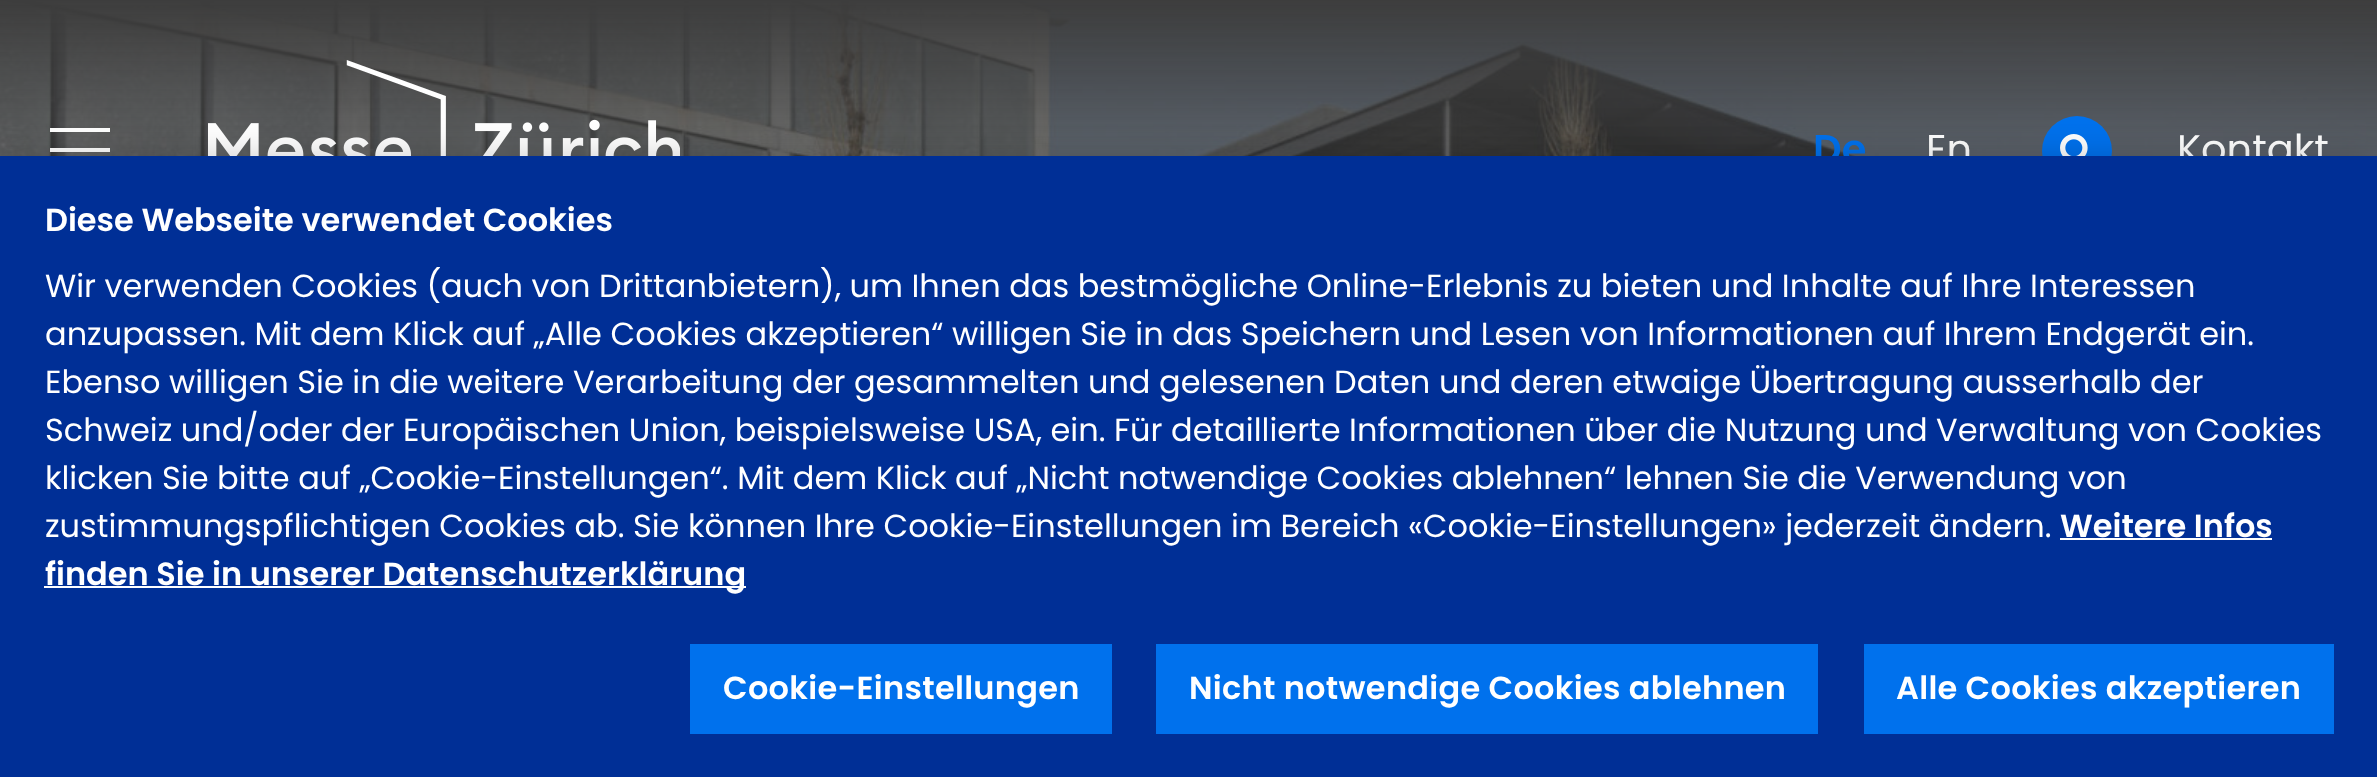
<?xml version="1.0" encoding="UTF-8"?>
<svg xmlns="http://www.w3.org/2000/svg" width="2377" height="777">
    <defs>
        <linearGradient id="g1" gradientUnits="userSpaceOnUse" x1="2042" y1="151" x2="2322" y2="151"><stop offset="0.25" stop-color="#0071ED"/><stop offset="0.75" stop-color="#001C56"/></linearGradient>
        <filter id="blur1" x="-50%" y="-200%" width="200%" height="500%"><feGaussianBlur stdDeviation="18"/></filter>
    </defs>
    <rect width="100%" height="100%" fill="#FFFFFF"/>
    <image x="0" y="0" width="2377" height="156" href="img_01.png"/>
    <rect x="50" y="128" width="60" height="4" fill="#FFFFFF"/>
    <rect x="50" y="148" width="60" height="4" fill="#FFFFFF"/>
    <image x="208" y="60" width="472" height="96" href="img_02.png"/>
    <text x="1813" y="163" font-family="Poppins" font-size="40" font-weight="600" fill="#0071ED">De</text>
    <text x="1926" y="163" font-family="Poppins" font-size="40" fill="#FFFFFF">En</text>
    <circle cx="2077" cy="151" r="35" fill="url(#g1)"/>
    <image x="2060" y="134" width="28" height="22" href="img_03.png"/>
    <text x="2177" y="163" font-family="Poppins" font-size="40" fill="#FFFFFF">Kontakt</text>
    <rect x="0" y="156" width="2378" height="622" fill="#000000" fill-opacity="0.2" filter="url(#blur1)"/>
    <rect x="0" y="156" width="2377" height="621" fill="#002F96"/>
    <text x="45" y="231" font-family="Poppins" font-size="32" font-weight="600" fill="#FFFFFF">Diese Webseite verwendet Cookies</text>
    <text font-family="Poppins" font-size="32" fill="#FFFFFF">
        <tspan x="45" y="297">Wir verwenden Cookies (auch von Drittanbietern), um Ihnen das bestmögliche Online-Erlebnis zu bieten und Inhalte auf Ihre Interessen</tspan>
        <tspan x="45" y="345">anzupassen. Mit dem Klick auf „Alle Cookies akzeptieren“ willigen Sie in das Speichern und Lesen von Informationen auf Ihrem Endgerät ein.</tspan>
        <tspan x="45" y="393">Ebenso willigen Sie in die weitere Verarbeitung der gesammelten und gelesenen Daten und deren etwaige Übertragung ausserhalb der</tspan>
        <tspan x="45" y="441">Schweiz und/oder der Europäischen Union, beispielsweise USA, ein. Für detaillierte Informationen über die Nutzung und Verwaltung von Cookies</tspan>
        <tspan x="45" y="489">klicken Sie bitte auf „Cookie-Einstellungen“. Mit dem Klick auf „Nicht notwendige Cookies ablehnen“ lehnen Sie die Verwendung von</tspan>
        <tspan x="45" y="537">zustimmungspflichtigen Cookies ab. Sie können Ihre Cookie-Einstellungen im Bereich «Cookie-Einstellungen» jederzeit ändern.</tspan>
    </text>
    <text x="2060" y="537" font-family="Poppins" font-size="32" font-weight="600" fill="#FFFFFF">Weitere Infos</text>
    <rect x="2060" y="538" width="212" height="2" fill="#FFFFFF"/>
    <rect x="44" y="586" width="702" height="2" fill="#FFFFFF"/>
    <text x="45" y="585" font-family="Poppins" font-size="32" font-weight="600" fill="#FFFFFF">finden Sie in unserer Datenschutzerklärung</text>
    <rect x="690" y="644" width="422" height="90" fill="#0071ED"/>
    <text x="723" y="699" font-family="Poppins" font-size="32" font-weight="600" letter-spacing="0.3" fill="#FFFFFF">Cookie-Einstellungen</text>
    <rect x="1156" y="644" width="662" height="90" fill="#0071ED"/>
    <text x="1189" y="699" font-family="Poppins" font-size="32" font-weight="600" letter-spacing="0.3" fill="#FFFFFF">Nicht notwendige Cookies ablehnen</text>
    <rect x="1864" y="644" width="470" height="90" fill="#0071ED"/>
    <text x="1896" y="699" font-family="Poppins" font-size="32" font-weight="600" letter-spacing="0.3" fill="#FFFFFF">Alle Cookies akzeptieren</text>
</svg>
